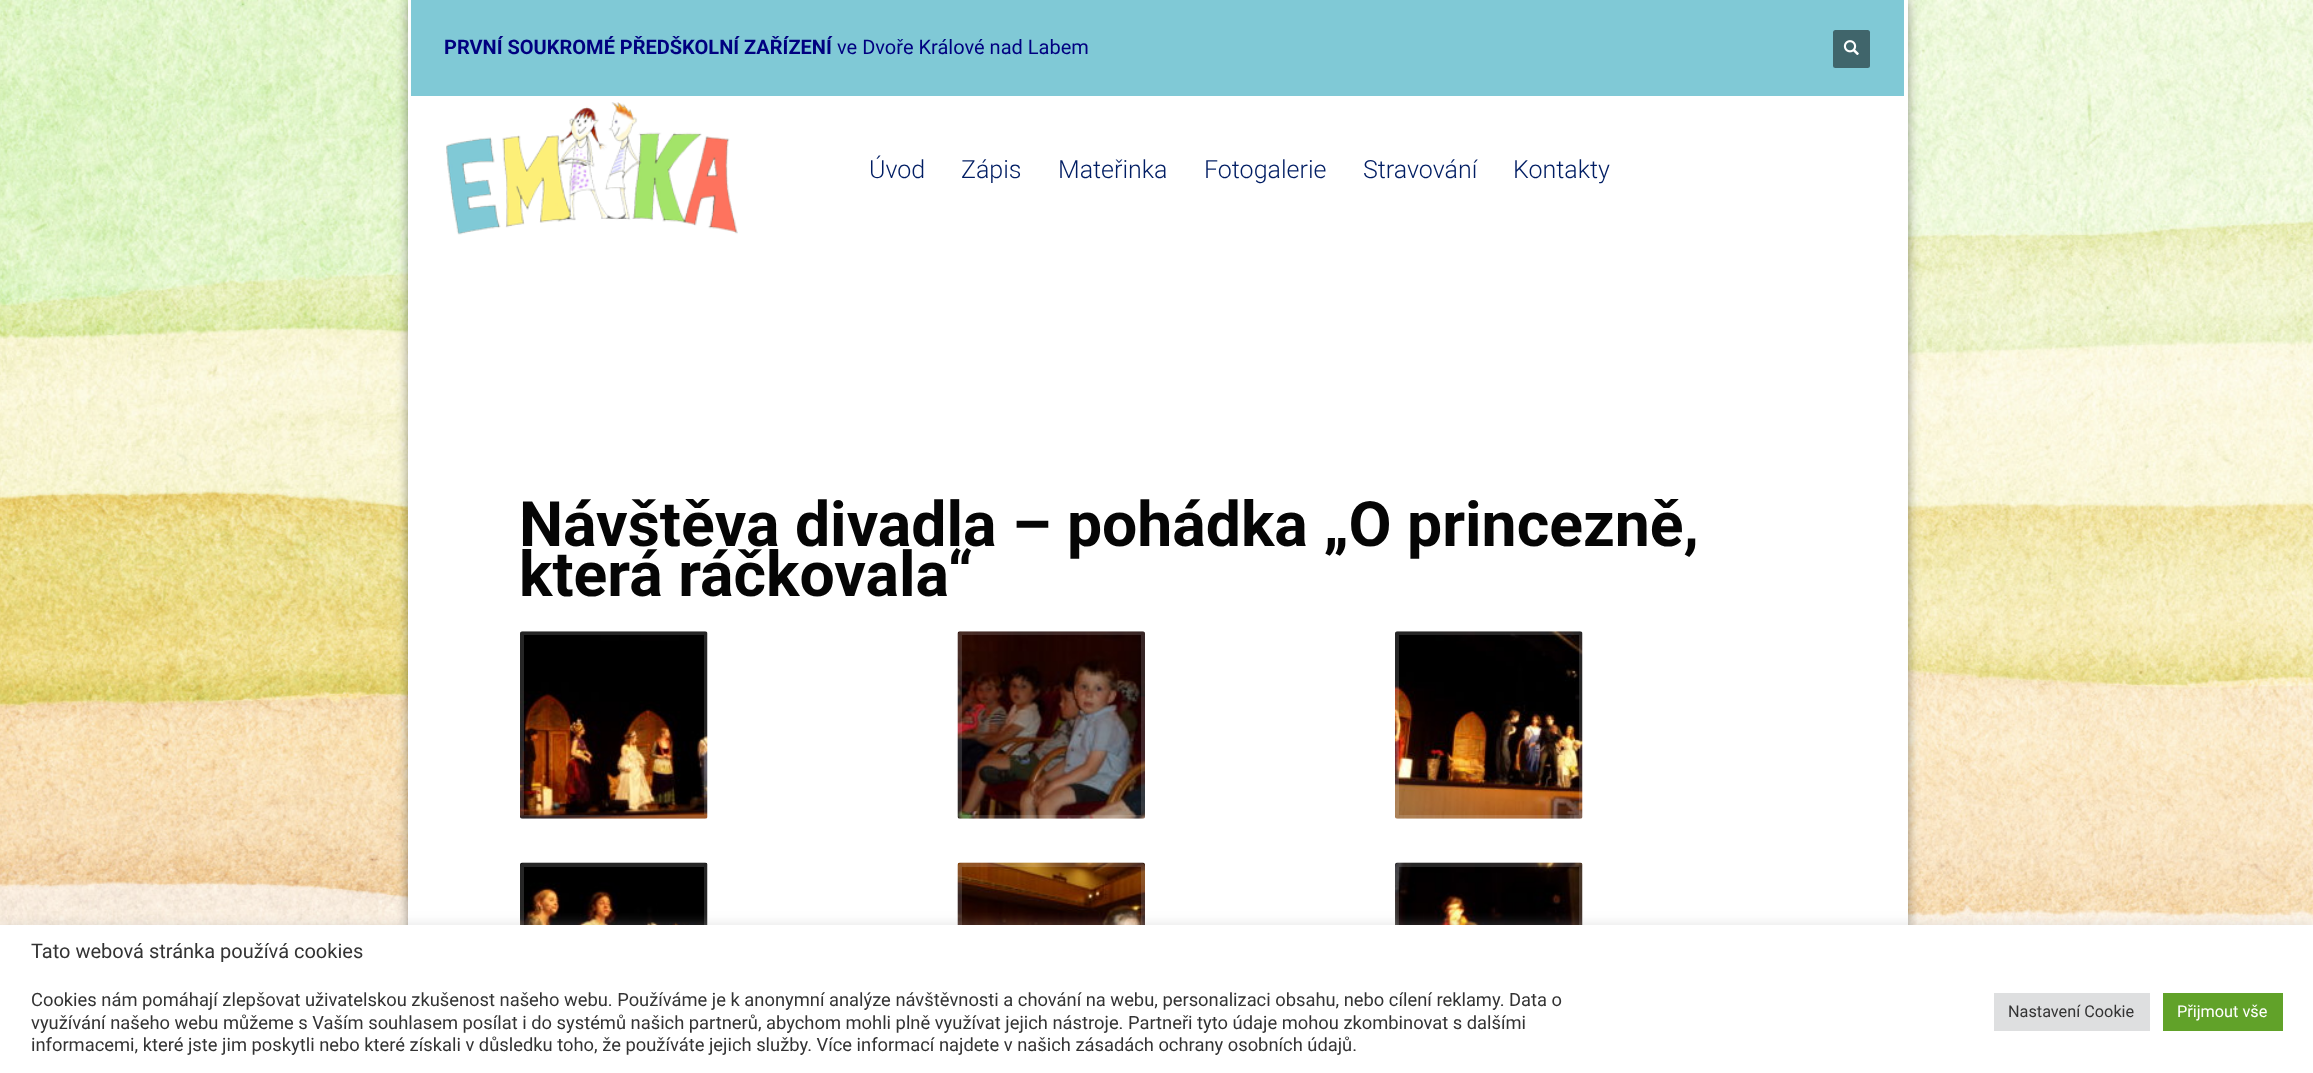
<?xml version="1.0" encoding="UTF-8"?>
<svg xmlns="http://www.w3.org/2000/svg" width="2313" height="1073">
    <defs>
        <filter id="blur1" x="-50%" y="-200%" width="200%" height="500%"><feGaussianBlur stdDeviation="6"/></filter>
    </defs>
    <rect width="100%" height="100%" fill="#FFFFFF"/>
    <image x="0" y="0" width="2313" height="925" href="img_01.png"/>
    <rect x="408" y="0" width="1500" height="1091" fill="#000000" fill-opacity="0.4" filter="url(#blur1)"/>
    <rect x="408" y="0" width="1500" height="925" fill="#FFFFFF"/>
    <rect x="411" y="0" width="1493" height="96" fill="#80C9D6"/>
    <text x="444" y="54" font-family="Roboto" font-size="20" font-weight="700" fill="#000080">PRVNÍ SOUKROMÉ PŘEDŠKOLNÍ ZAŘÍZENÍ</text>
    <text x="837" y="54" font-family="Roboto" font-size="20" fill="#000080">ve Dvoře Králové nad Labem</text>
    <rect x="1833" y="30" width="37" height="38" rx="2.5" fill="#40656B"/>
    <image x="1843" y="40" width="16" height="15" href="img_02.png"/>
    <image x="446" y="102" width="292" height="133" href="img_03.png"/>
    <text x="869" y="178" font-family="Roboto" font-size="25" font-weight="300" fill="#001D63">Úvod</text>
    <text x="961" y="178" font-family="Roboto" font-size="25" font-weight="300" fill="#001D63">Zápis</text>
    <text x="1058" y="178" font-family="Roboto" font-size="25" font-weight="300" fill="#001D63">Mateřinka</text>
    <text x="1204" y="178" font-family="Roboto" font-size="25" font-weight="300" fill="#001D63">Fotogalerie</text>
    <text x="1363" y="178" font-family="Roboto" font-size="25" font-weight="300" fill="#001D63">Stravování</text>
    <text x="1513" y="178" font-family="Roboto" font-size="25" font-weight="300" fill="#001D63">Kontakty</text>
    <text font-family="Roboto" font-size="62.5" font-weight="700" fill="#050505">
        <tspan x="519" y="546">Návštěva divadla – pohádka „O princezně,</tspan>
        <tspan x="519" y="596">která ráčkovala“</tspan>
    </text>
    <image x="520" y="631" width="188" height="188" href="img_04.png"/>
    <rect x="522" y="633" width="184" height="184" rx="2" fill="none" stroke="#FFFFFF" stroke-opacity="0.15" stroke-width="4"/>
    <image x="957" y="631" width="188" height="188" href="img_05.png"/>
    <rect x="960" y="633" width="183" height="184" rx="2" fill="none" stroke="#FFFFFF" stroke-opacity="0.15" stroke-width="4"/>
    <image x="1395" y="631" width="188" height="188" href="img_06.png"/>
    <rect x="1397" y="633" width="184" height="184" rx="2" fill="none" stroke="#FFFFFF" stroke-opacity="0.15" stroke-width="4"/>
    <image x="520" y="862" width="188" height="63" href="img_07.png"/>
    <rect x="522" y="865" width="184" height="183" rx="2" fill="none" stroke="#FFFFFF" stroke-opacity="0.15" stroke-width="4"/>
    <image x="957" y="862" width="188" height="63" href="img_08.png"/>
    <rect x="960" y="865" width="183" height="183" rx="2" fill="none" stroke="#FFFFFF" stroke-opacity="0.15" stroke-width="4"/>
    <image x="1395" y="862" width="188" height="63" href="img_09.png"/>
    <rect x="1397" y="865" width="184" height="183" rx="2" fill="none" stroke="#FFFFFF" stroke-opacity="0.15" stroke-width="4"/>
    <rect x="0" y="924" width="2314" height="149" fill="#ACABAB" fill-opacity="0.3" filter="url(#blur1)"/>
    <rect x="0" y="925" width="2313" height="148" fill="#FFFFFF"/>
    <text x="31" y="958" font-family="Roboto" font-size="20" fill="#333333">Tato webová stránka používá cookies</text>
    <text font-family="Roboto" font-size="18.33" fill="#333333">
        <tspan x="31" y="1006">Cookies nám pomáhají zlepšovat uživatelskou zkušenost našeho webu. Používáme je k anonymní analýze návštěvnosti a chování na webu, personalizaci obsahu, nebo cílení reklamy. Data o</tspan>
        <tspan x="31" y="1029">využívání našeho webu můžeme s Vaším souhlasem posílat i do systémů našich partnerů, abychom mohli plně využívat jejich nástroje. Partneři tyto údaje mohou zkombinovat s dalšími</tspan>
        <tspan x="31" y="1051">informacemi, které jste jim poskytli nebo které získali v důsledku toho, že používáte jejich služby. Více informací najdete v našich zásadách ochrany osobních údajů.</tspan>
    </text>
    <rect x="1994" y="993" width="156" height="38" fill="#DEDFE0"/>
    <text x="2008" y="1017" font-family="Roboto" font-size="16.25" fill="#333333">Nastavení Cookie</text>
    <rect x="2163" y="993" width="120" height="38" fill="#61A229"/>
    <text x="2177" y="1017" font-family="Roboto" font-size="16.25" fill="#FFFFFF">Přijmout vše</text>
</svg>
